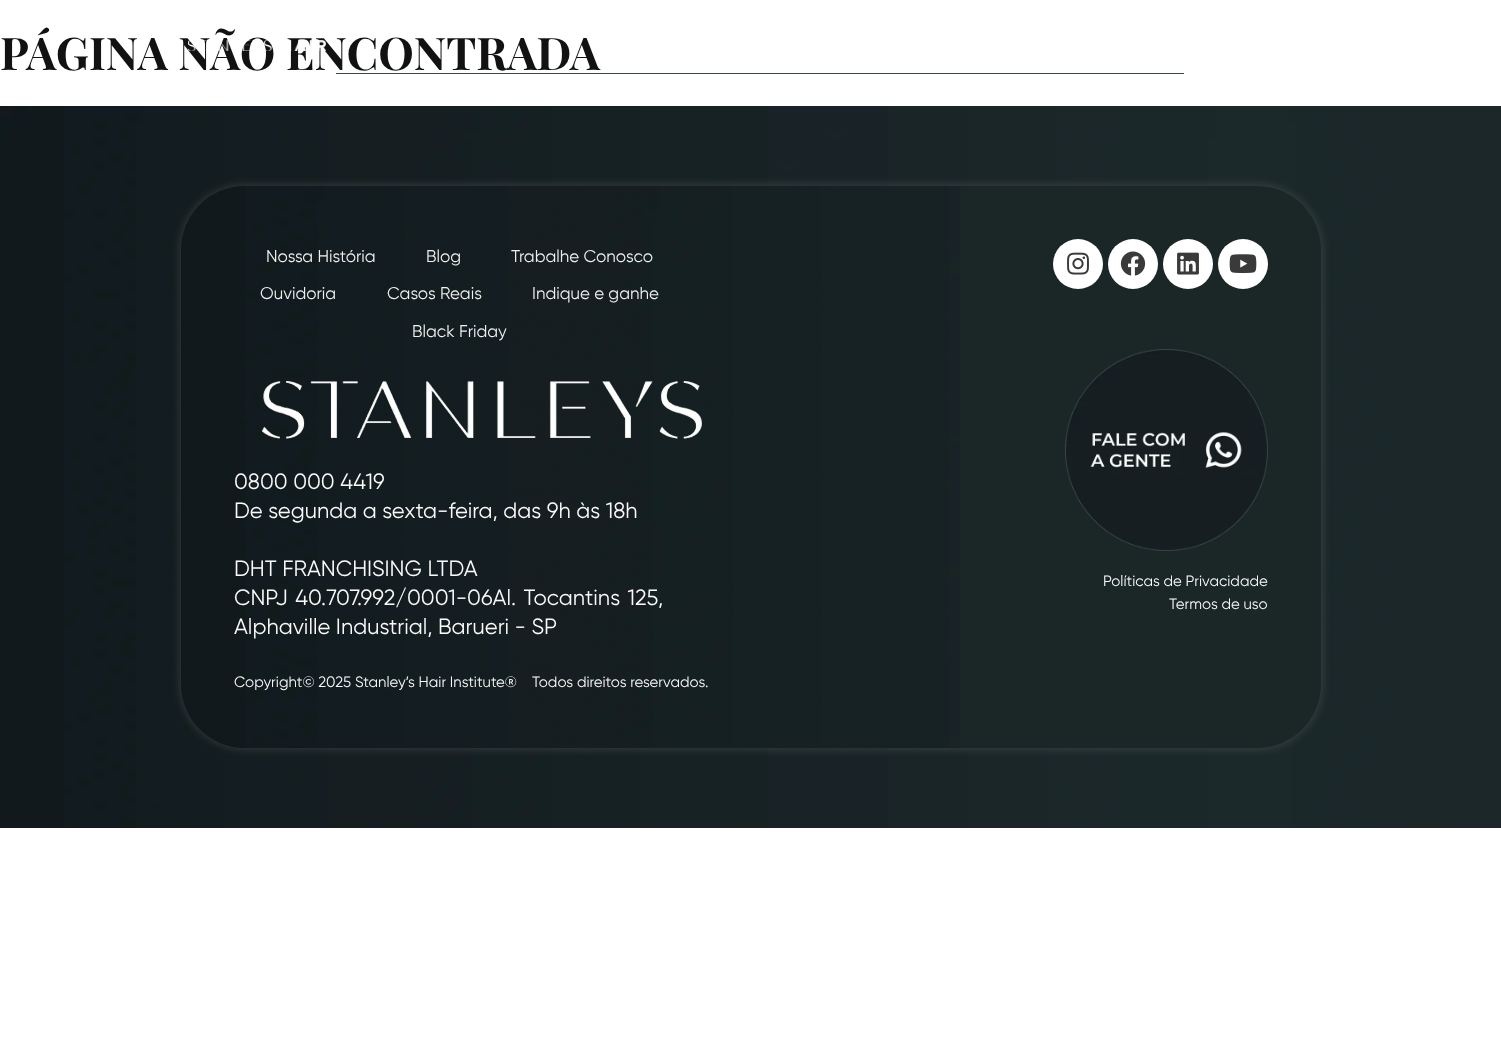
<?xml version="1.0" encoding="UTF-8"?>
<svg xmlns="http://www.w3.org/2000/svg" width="1501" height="1064">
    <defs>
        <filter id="blur1" x="-50%" y="-200%" width="200%" height="500%"><feGaussianBlur stdDeviation="5"/></filter>
    </defs>
    <rect width="100%" height="100%" fill="#FFFFFF"/>
    <text x="0" y="70" font-family="Playfair Display" font-size="45" font-weight="700" fill="#121212">PÁGINA NÃO ENCONTRADA</text>
    <image x="188" y="40" width="138" height="11" href="img_01.png"/>
    <rect x="336" y="73" width="848" height="1" fill="#3D4A4D"/>
    <image x="0" y="106" width="1501" height="722" href="img_02.png"/>
    <rect x="181" y="186" width="1140" height="562" rx="64" fill="#636363" fill-opacity="0.5" filter="url(#blur1)"/>
    <rect x="181" y="186" width="1140" height="562" rx="64" fill="#1B2627"/>
    <image x="181" y="186" width="779" height="562" href="img_03.png"/>
    <text x="266" y="262" font-family="Gilroy" font-size="17" fill="#EFEFEF">Nossa História</text>
    <text x="426" y="262" font-family="Gilroy" font-size="17" fill="#EFEFEF">Blog</text>
    <text x="511" y="262" font-family="Gilroy" font-size="17" fill="#EFEFEF">Trabalhe Conosco</text>
    <text x="260" y="299" font-family="Gilroy" font-size="17" fill="#EFEFEF">Ouvidoria</text>
    <text x="387" y="299" font-family="Gilroy" font-size="17" fill="#EFEFEF">Casos Reais</text>
    <text x="532" y="299" font-family="Gilroy" font-size="17" fill="#EFEFEF">Indique e ganhe</text>
    <text x="412" y="337" font-family="Gilroy" font-size="17" fill="#EFEFEF">Black Friday</text>
    <image x="262" y="381" width="440" height="58" href="img_04.png"/>
    <text font-family="Gilroy" font-size="22" fill="#FAFAFA">
        <tspan x="234" y="489">0800 000 4419</tspan>
        <tspan x="234" y="518">De segunda a sexta-feira, das 9h às 18h</tspan>
    </text>
    <text font-family="Gilroy" font-size="22" fill="#FAFAFA">
        <tspan x="234" y="576">DHT FRANCHISING LTDA</tspan>
        <tspan x="234" y="605" word-spacing="2">CNPJ 40.707.992/0001-06Al. Tocantins 125,</tspan>
        <tspan x="234" y="634">Alphaville Industrial, Barueri - SP</tspan>
    </text>
    <text x="234" y="687" font-family="Gilroy" font-size="15" fill="#FAFAFA">Copyright© 2025 Stanley’s Hair Institute®</text>
    <text x="532" y="687" font-family="Gilroy" font-size="15" fill="#FAFAFA">Todos direitos reservados.</text>
    <circle cx="1078" cy="264" r="25" fill="#FFFFFF"/>
    <image x="1067" y="252" width="22" height="23" href="img_05.png"/>
    <circle cx="1133" cy="264" r="25" fill="#FFFFFF"/>
    <image x="1120" y="251" width="26" height="25" href="img_06.png"/>
    <circle cx="1188" cy="264" r="25" fill="#FFFFFF"/>
    <image x="1177" y="252" width="22" height="23" href="img_07.png"/>
    <circle cx="1243" cy="264" r="25" fill="#FFFFFF"/>
    <image x="1229" y="254" width="28" height="19" href="img_08.png"/>
    <image x="1065" y="349" width="203" height="202" href="img_09.png"/>
    <text x="1103" y="586" font-family="Gilroy" font-size="15" fill="#FAFAFA">Políticas de Privacidade</text>
    <text x="1169" y="609" font-family="Gilroy" font-size="15" fill="#FAFAFA">Termos de uso</text>
</svg>
